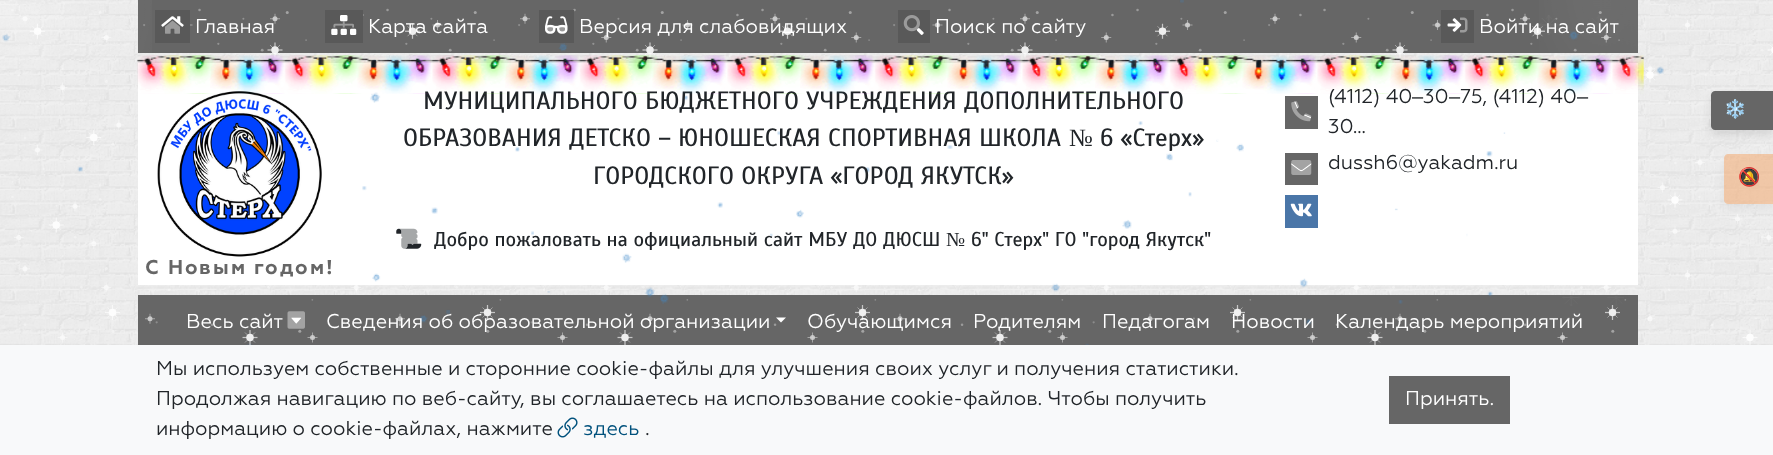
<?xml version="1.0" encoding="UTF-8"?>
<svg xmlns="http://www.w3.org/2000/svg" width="1773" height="455">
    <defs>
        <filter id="blur1" x="-50%" y="-200%" width="200%" height="500%"><feGaussianBlur stdDeviation="4"/></filter>
        <clipPath id="clip1"><path d="M 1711 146 H 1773 V 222 H 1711 Z M 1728 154 H 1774 V 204 H 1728 C 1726 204 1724 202 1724 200 V 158 C 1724 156 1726 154 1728 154 Z" clip-rule="evenodd"/></clipPath>
    </defs>
    <rect width="100%" height="100%" fill="#FFFFFF"/>
    <image x="0" y="0" width="1773" height="345" href="img_01.png"/>
    <rect x="138" y="0" width="1500" height="53" fill="#666666"/>
    <rect x="138" y="63" width="1500" height="222" fill="#FFFFFF"/>
    <rect x="138" y="295" width="1500" height="50" fill="#666666"/>
    <image x="2" y="0" width="1662" height="345" href="img_04.png"/>
    <image x="11" y="8" width="1759" height="325" href="img_05.png"/>
    <image x="14" y="13" width="1759" height="330" href="img_06.png"/>
    <image x="30" y="23" width="1743" height="322" href="img_07.png"/>
    <text x="423" y="109" font-family="Scada" font-size="25" fill="#212529">МУНИЦИПАЛЬНОГО БЮДЖЕТНОГО УЧРЕЖДЕНИЯ ДОПОЛНИТЕЛЬНОГО</text>
    <text x="1328" y="103" font-family="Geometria" font-size="20" fill="#212529">(4112) 40</text>
    <text x="1423" y="103" font-family="Geometria" font-size="20" fill="#212529">30</text>
    <text x="1460" y="103" font-family="Geometria" font-size="20" fill="#212529">75, (4112) 40</text>
    <image x="157" y="91" width="165" height="166" href="img_26.png"/>
    <image x="137" y="55" width="1507" height="39" href="img_18.png"/>
    <image x="0" y="0" width="152" height="68" href="img_02.png"/>
    <text x="1479" y="33" font-family="Geometria" font-size="20" fill="#FFFFFF">Войти на сайт</text>
    <image x="1539" y="0" width="104" height="79" href="img_03.png"/>
    <rect x="155" y="10" width="35" height="33" fill="#595959"/>
    <image x="161" y="16" width="23" height="11" href="img_08.png"/>
    <image x="165" y="20" width="15" height="14" href="img_09.png"/>
    <text x="195" y="33" font-family="Geometria" font-size="20" fill="#FFFFFF">Главная</text>
    <rect x="325" y="10" width="38" height="33" fill="#595959"/>
    <image x="331" y="15" width="26" height="20" href="img_10.png"/>
    <image x="333" y="21" width="21" height="7" href="img_11.png"/>
    <text x="368" y="33" font-family="Geometria" font-size="20" fill="#FFFFFF">Карта сайта</text>
    <rect x="539" y="10" width="35" height="33" fill="#595959"/>
    <image x="545" y="16" width="23" height="18" href="img_12.png"/>
    <image x="547" y="27" width="18" height="5" href="img_13.png"/>
    <text x="579" y="33" font-family="Geometria" font-size="20" fill="#FFFFFF">Версия для слабовидящих</text>
    <rect x="898" y="10" width="32" height="33" fill="#595959"/>
    <image x="916" y="28" width="8" height="7" href="img_15.png"/>
    <image x="903" y="15" width="17" height="17" href="img_14.png"/>
    <text x="935" y="33" font-family="Geometria" font-size="20" fill="#FFFFFF">Поиск по сайту</text>
    <rect x="1441" y="10" width="33" height="33" fill="#595959"/>
    <image x="1447" y="18" width="15" height="14" href="img_16.png"/>
    <image x="1460" y="17" width="8" height="16" href="img_17.png"/>
    <text x="403" y="146" font-family="Scada" font-size="25" fill="#212529">ОБРАЗОВАНИЯ ДЕТСКО – ЮНОШЕСКАЯ СПОРТИВНАЯ ШКОЛА</text>
    <text x="1069" y="146" font-family="Liberation Serif" font-size="25" fill="#212529">№</text>
    <text x="1100" y="146" font-family="Scada" font-size="25" fill="#212529">6 «Стерх»</text>
    <text x="593" y="184" font-family="Scada" font-size="25" fill="#212529">ГОРОДСКОГО ОКРУГА «ГОРОД ЯКУТСК»</text>
    <image x="396" y="228" width="26" height="21" href="img_19.png"/>
    <image x="399" y="228" width="19" height="21" href="img_20.png"/>
    <text x="434" y="246" font-family="Scada" font-size="20" fill="#212529">Добро пожаловать на официальный сайт МБУ ДО ДЮСШ</text>
    <text x="946" y="246" font-family="Liberation Serif" font-size="20" fill="#212529">№</text>
    <text x="971" y="246" font-family="Scada" font-size="20" fill="#212529">6" Стерх" ГО "город Якутск"</text>
    <rect x="1285" y="96" width="33" height="33" fill="#666666"/>
    <image x="1294" y="101" width="17" height="18" href="img_22.png"/>
    <image x="1291" y="101" width="21" height="21" href="img_21.png"/>
    <text x="1412" y="103" font-family="Liberation Sans" font-size="20" fill="#212529">‒</text>
    <text x="1449" y="103" font-family="Liberation Sans" font-size="20" fill="#212529">‒</text>
    <text x="1577" y="103" font-family="Liberation Sans" font-size="20" fill="#212529">‒</text>
    <text x="1328" y="133" font-family="Geometria" font-size="20" fill="#212529">30…</text>
    <rect x="1285" y="153" width="33" height="32" fill="#666666"/>
    <image x="1291" y="163" width="21" height="9" href="img_24.png"/>
    <image x="1291" y="160" width="21" height="15" href="img_23.png"/>
    <text x="1328" y="169" font-family="Geometria" font-size="20" fill="#212529">dussh6@yakadm.ru</text>
    <rect x="1285" y="195" width="33" height="33" fill="#4A76A8"/>
    <image x="1290" y="203" width="22" height="14" href="img_25.png"/>
    <text x="145" y="274" font-family="Geometria" font-size="20" font-weight="700" fill="#666666">С</text>
    <text x="168" y="274" font-family="Geometria" font-size="20" font-weight="700" fill="#666666">Н</text>
    <text x="185" y="274" font-family="Geometria" font-size="20" font-weight="700" fill="#666666">о</text>
    <text x="199" y="274" font-family="Geometria" font-size="20" font-weight="700" fill="#666666">в</text>
    <text x="213" y="274" font-family="Geometria" font-size="20" font-weight="700" fill="#666666">ы</text>
    <text x="231" y="274" font-family="Geometria" font-size="20" font-weight="700" fill="#666666">м</text>
    <text x="254" y="274" font-family="Geometria" font-size="20" font-weight="700" fill="#666666">г</text>
    <text x="265" y="274" font-family="Geometria" font-size="20" font-weight="700" fill="#666666">о</text>
    <text x="280" y="274" font-family="Geometria" font-size="20" font-weight="700" fill="#666666">д</text>
    <text x="295" y="274" font-family="Geometria" font-size="20" font-weight="700" fill="#666666">о</text>
    <text x="310" y="274" font-family="Geometria" font-size="20" font-weight="700" fill="#666666">м</text>
    <text x="326" y="274" font-family="Geometria" font-size="20" font-weight="700" fill="#666666">!</text>
    <rect x="1711" y="96" width="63" height="39" rx="4" fill="#000000" fill-opacity="0.1" filter="url(#blur1)"/>
    <path d="M 1715 91 H 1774 V 130 H 1715 C 1713 130 1711 128 1711 126 V 95 C 1711 93 1713 91 1715 91 Z" fill="#666666"/>
    <text x="1724" y="115" font-family="Noto Color Emoji" font-size="18" fill="#FFFFFF">❄️</text>
    <g clip-path="url(#clip1)">
        <rect x="1724" y="159" width="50" height="50" rx="4" fill="#000000" fill-opacity="0.05" filter="url(#blur1)"/>
    </g>
    <path d="M 1728 154 H 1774 V 204 H 1728 C 1726 204 1724 202 1724 200 V 158 C 1724 156 1726 154 1728 154 Z" fill="#F4A261" fill-opacity="0.5"/>
    <text x="1738" y="183" font-family="Noto Color Emoji" font-size="18" fill="#F7E2D2">🔕</text>
    <image x="1562" y="296" width="62" height="10" href="img_27.png"/>
    <text x="186" y="328" font-family="Geometria" font-size="20" fill="#FFFFFF">Весь сайт</text>
    <image x="291" y="317" width="11" height="7" href="img_29.png"/>
    <image x="287" y="311" width="18" height="18" href="img_28.png"/>
    <text x="326" y="328" font-family="Geometria" font-size="20" fill="#FFFFFF">Сведения об образовательной организации</text>
    <path d="M 776 317.5 H 786 L 781 322.5 Z" fill="#FFFFFF"/>
    <text x="807" y="328" font-family="Geometria" font-size="20" fill="#FFFFFF">Обучающимся</text>
    <text x="973" y="328" font-family="Geometria" font-size="20" fill="#FFFFFF">Родителям</text>
    <text x="1102" y="328" font-family="Geometria" font-size="20" fill="#FFFFFF">Педагогам</text>
    <text x="1231" y="328" font-family="Geometria" font-size="20" fill="#FFFFFF">Новости</text>
    <text x="1335" y="328" font-family="Geometria" font-size="20" fill="#FFFFFF">Календарь мероприятий</text>
    <rect x="0" y="345" width="1773" height="110" fill="#F8F9FA"/>
    <text font-family="Geometria" font-size="20" fill="#212529">
        <tspan x="156" y="375">Мы используем собственные и сторонние cookie-файлы для улучшения своих услуг и получения статистики.</tspan>
        <tspan x="156" y="405">Продолжая навигацию по веб-сайту, вы соглашаетесь на использование cookie-файлов. Чтобы получить</tspan>
        <tspan x="156" y="435">информацию о cookie-файлах, нажмите</tspan>
    </text>
    <image x="557" y="417" width="21" height="21" href="img_30.png"/>
    <text x="583" y="435" font-family="Geometria" font-size="20" fill="#00517C">здесь</text>
    <text x="645" y="435" font-family="Geometria" font-size="20" fill="#212529">.</text>
    <rect x="1389" y="376" width="121" height="48" fill="#666666"/>
    <text x="1405" y="405" font-family="Geometria" font-size="20" fill="#FFFFFF">Принять.</text>
</svg>
